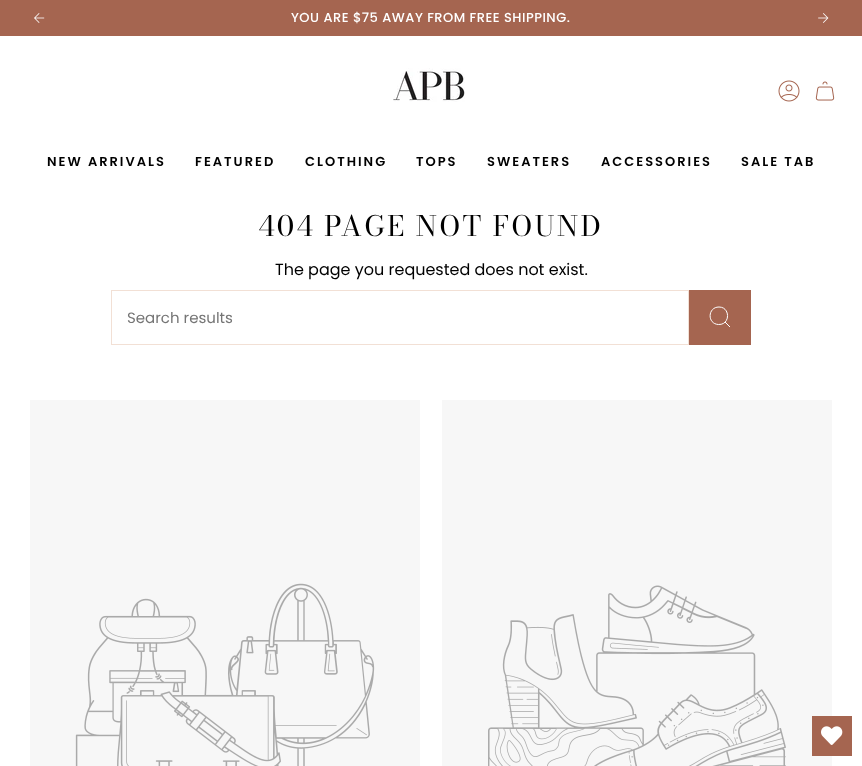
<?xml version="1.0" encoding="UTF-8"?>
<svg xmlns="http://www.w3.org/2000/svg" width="862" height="766">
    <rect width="100%" height="100%" fill="#FFFFFF"/>
    <rect x="0" y="0" width="862" height="36" fill="#A56550"/>
    <image x="34" y="13" width="11" height="10" href="img_01.png"/>
    <text x="291" y="22" font-family="Poppins" font-size="13" font-weight="500" letter-spacing="0.5" fill="#FFFFFF">YOU ARE $75 AWAY FROM FREE SHIPPING.</text>
    <image x="818" y="13" width="11" height="10" href="img_02.png"/>
    <image x="393" y="68" width="72" height="34" href="img_03.png"/>
    <image x="778" y="80" width="22" height="22" href="img_04.png"/>
    <image x="815" y="81" width="20" height="20" href="img_05.png"/>
    <text x="47" y="166" font-family="Poppins" font-size="13" font-weight="600" letter-spacing="2" fill="#000000">NEW ARRIVALS</text>
    <text x="195" y="166" font-family="Poppins" font-size="13" font-weight="600" letter-spacing="2" fill="#000000">FEATURED</text>
    <text x="305" y="166" font-family="Poppins" font-size="13" font-weight="600" letter-spacing="2" fill="#000000">CLOTHING</text>
    <text x="416" y="166" font-family="Poppins" font-size="13" font-weight="600" letter-spacing="2" fill="#000000">TOPS</text>
    <text x="487" y="166" font-family="Poppins" font-size="13" font-weight="600" letter-spacing="2" fill="#000000">SWEATERS</text>
    <text x="601" y="166" font-family="Poppins" font-size="13" font-weight="600" letter-spacing="2" fill="#000000">ACCESSORIES</text>
    <text x="741" y="166" font-family="Poppins" font-size="13" font-weight="600" letter-spacing="2" fill="#000000">SALE TAB</text>
    <text x="258" y="236" font-family="Bodoni Moda" font-size="28" letter-spacing="2.1" fill="#000000">404 PAGE NOT FOUND</text>
    <text x="275" y="275" font-family="Poppins" font-size="16" fill="#000000">The page you requested does not exist.</text>
    <rect x="111.5" y="290.5" width="577" height="54" fill="none" stroke="#F2E0D5"/>
    <text x="127" y="323" font-family="Poppins" font-size="15" fill="#757575">Search results</text>
    <rect x="689" y="290" width="62" height="55" fill="#A56550"/>
    <path d="M 719 307 C 730.5 307 730.5 325 718.5 324.5 C 707 324 707.5 307 719 307 Z M 725 322 L 730 327" fill="none" stroke="#FFFFFF"/>
    <rect x="30" y="400" width="390" height="366" fill="#F7F7F7"/>
    <image x="75" y="583" width="300" height="183" href="img_06.png"/>
    <rect x="442" y="400" width="390" height="366" fill="#F7F7F7"/>
    <image x="488" y="585" width="298" height="181" href="img_07.png"/>
    <rect x="812" y="716" width="40" height="40" fill="#A56550"/>
    <image x="821" y="726" width="22" height="19" href="img_08.png"/>
</svg>
